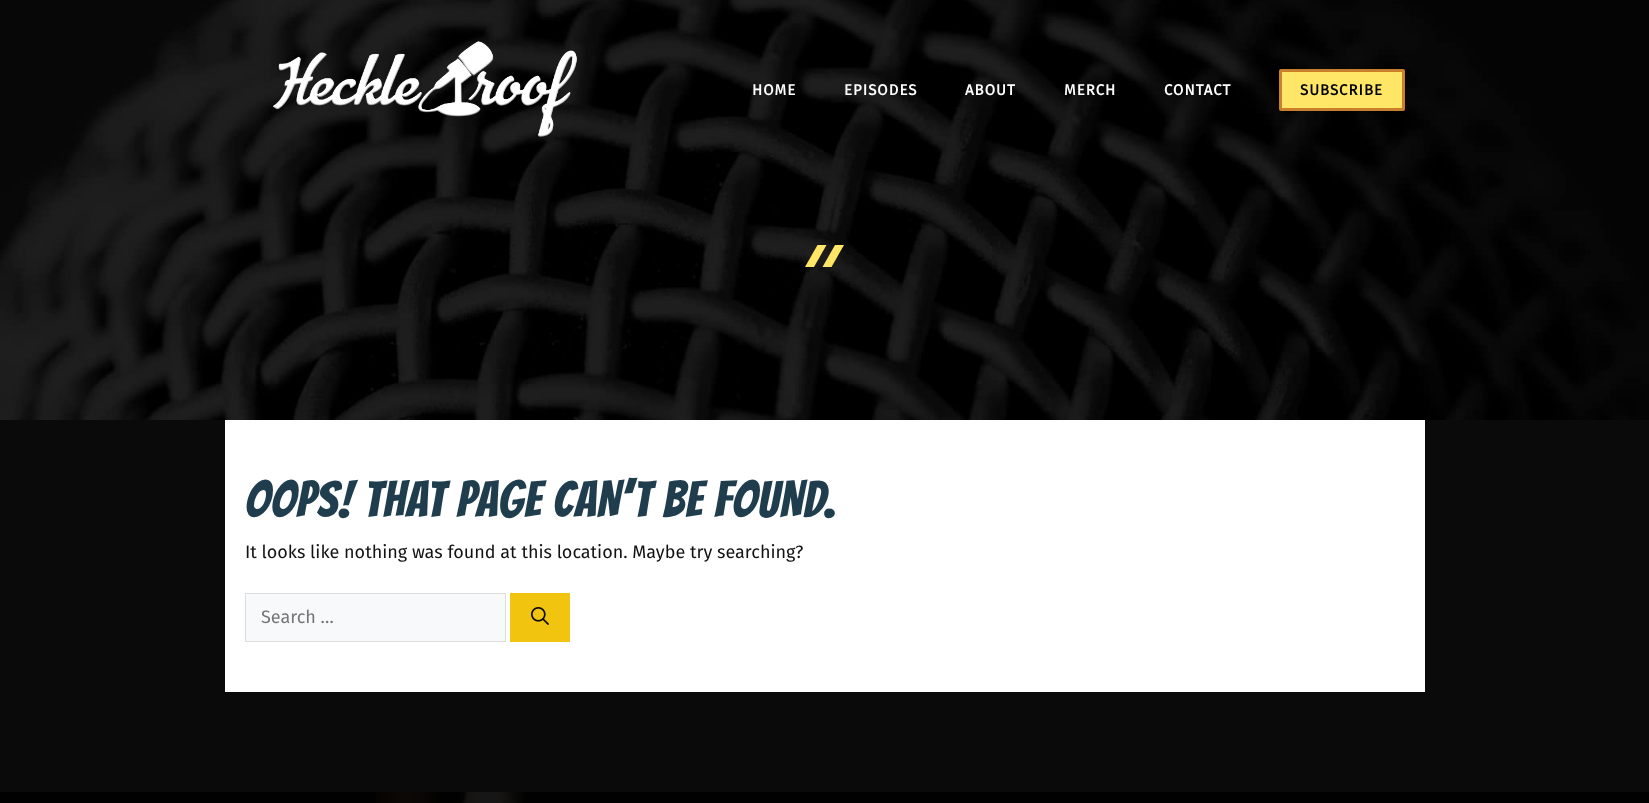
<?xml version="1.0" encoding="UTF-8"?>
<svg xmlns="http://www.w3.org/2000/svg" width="1649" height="803">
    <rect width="100%" height="100%" fill="#0A0A0A"/>
    <image x="0" y="0" width="1649" height="420" href="img_01.png"/>
    <path d="M 814 267 H 805 L 817.5 245 H 826.5 Z" fill="#FFE666"/>
    <path d="M 831.5 267 H 822.5 L 835 245 H 844 Z" fill="#FFE666"/>
    <image x="272" y="41" width="305" height="96" href="img_02.png"/>
    <text x="752" y="95" font-family="Fira Sans" font-size="15" font-weight="700" letter-spacing="1" fill="#FFFFFF">HOME</text>
    <text x="844" y="95" font-family="Fira Sans" font-size="15" font-weight="700" letter-spacing="1" fill="#FFFFFF">EPISODES</text>
    <text x="965" y="95" font-family="Fira Sans" font-size="15" font-weight="700" letter-spacing="1" fill="#FFFFFF">ABOUT</text>
    <text x="1064" y="95" font-family="Fira Sans" font-size="15" font-weight="700" letter-spacing="1" fill="#FFFFFF">MERCH</text>
    <text x="1164" y="95" font-family="Fira Sans" font-size="15" font-weight="700" letter-spacing="1" fill="#FFFFFF">CONTACT</text>
    <rect x="1280.5" y="70.5" width="123" height="39" rx="0.5" fill="#FFE666" stroke="#C97F2C" stroke-width="3"/>
    <text x="1300" y="95" font-family="Fira Sans" font-size="15" font-weight="700" letter-spacing="1" fill="#000000">SUBSCRIBE</text>
    <rect x="225" y="420" width="1200" height="272" fill="#FFFFFF"/>
    <text x="245" y="517" font-family="Bangers" font-size="50" letter-spacing="1" fill="#1F3D4D">OOPS! THAT PAGE CAN’T BE FOUND.</text>
    <text x="245" y="558" font-family="Fira Sans" font-size="18" fill="#121212">It looks like nothing was found at this location. Maybe try searching?</text>
    <rect x="245.5" y="593.5" width="260" height="48" fill="#F7F9FA" stroke="#DDDDDD"/>
    <text x="261" y="623" font-family="Fira Sans" font-size="18" fill="#757575">Search …</text>
    <rect x="510" y="593" width="60" height="49" fill="#F1C40F"/>
    <image x="531" y="607" width="18" height="18" href="img_03.png"/>
    <rect x="0" y="792" width="1649" height="11" fill="#010101"/>
    <image x="376" y="792" width="147" height="11" href="img_04.png"/>
</svg>
